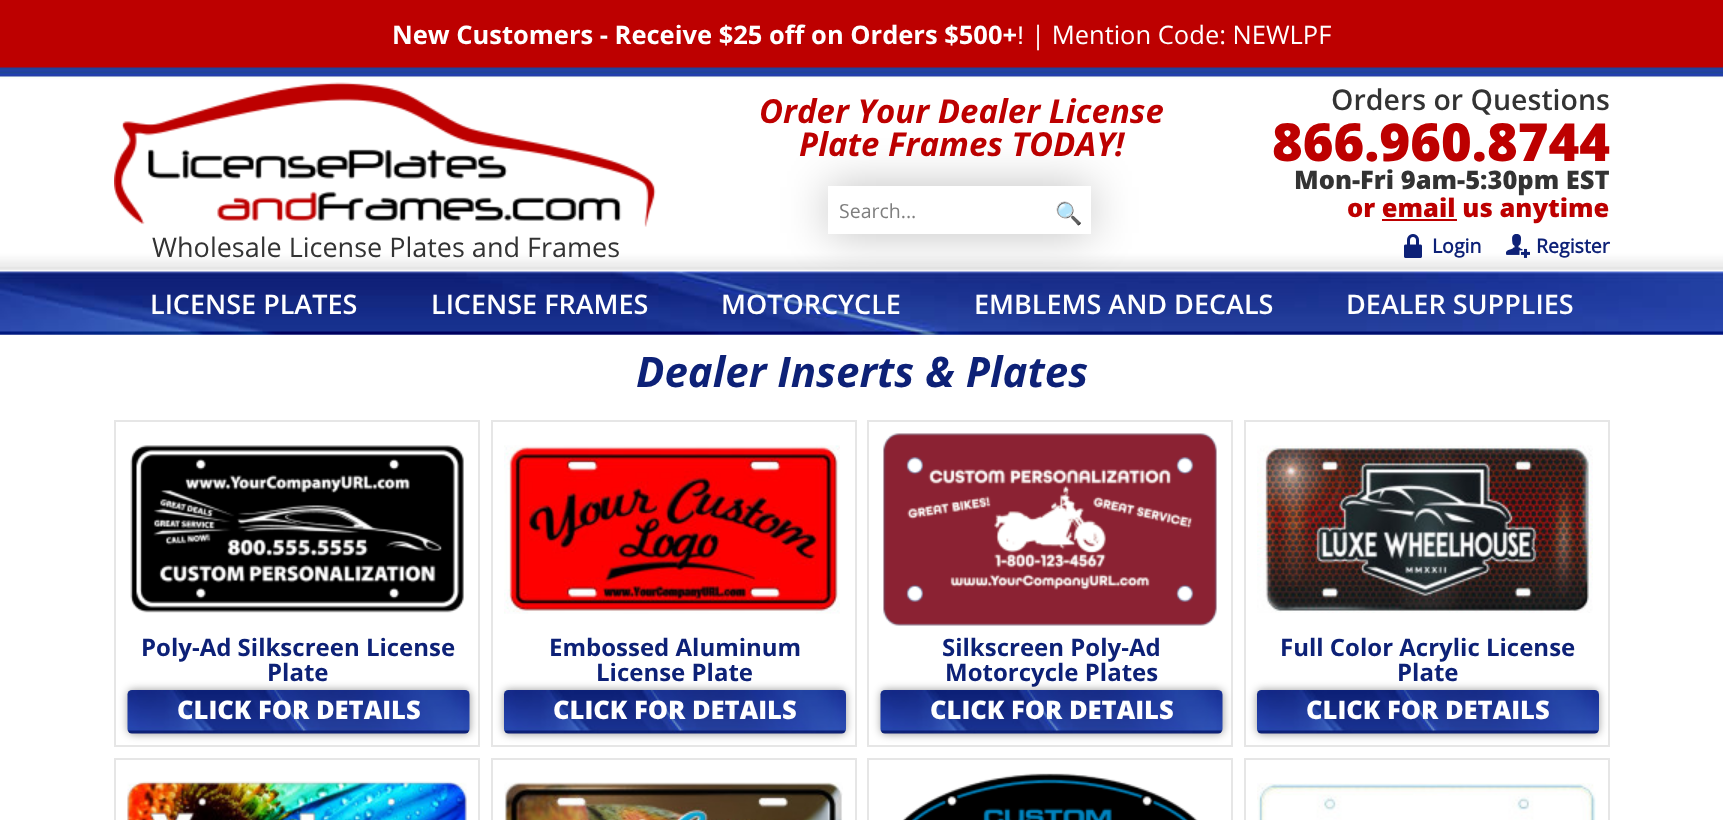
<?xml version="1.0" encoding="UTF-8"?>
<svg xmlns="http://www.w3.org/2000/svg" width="1723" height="820">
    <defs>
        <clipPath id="clip1"><path d="M 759 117 H 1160 V 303 H 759 Z M 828 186 H 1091 V 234 H 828 Z" clip-rule="evenodd"/></clipPath>
        <filter id="blur1" x="-50%" y="-200%" width="200%" height="500%"><feGaussianBlur stdDeviation="22.5"/></filter>
        <filter id="blur2" x="-50%" y="-200%" width="200%" height="500%"><feGaussianBlur stdDeviation="4"/></filter>
    </defs>
    <rect width="100%" height="100%" fill="#FFFFFF"/>
    <image x="0" y="334" width="1723" height="1" href="img_01.png"/>
    <rect x="0" y="0" width="1723" height="68" fill="#BD0000"/>
    <text x="392" y="44" font-family="Open Sans" font-size="25.5" font-weight="700" fill="#FFFFFF">New Customers - Receive $25 off on Orders $500+</text>
    <text x="1017" y="44" font-family="Liberation Sans" font-size="25.5" fill="#FFFFFF">!</text>
    <text x="1031" y="44" font-family="Open Sans" font-size="25.5" fill="#FFFFFF">| Mention Code: NEWLPF</text>
    <image x="0" y="67" width="1723" height="268" href="img_02.png"/>
    <image x="114" y="82" width="542" height="145" href="img_03.png"/>
    <text x="759" y="123" font-family="Open Sans" font-size="33" font-weight="700" font-style="italic" fill="#BD0000">Order Your Dealer License</text>
    <text x="799" y="156" font-family="Open Sans" font-size="33" font-weight="700" font-style="italic" fill="#BD0000">Plate Frames TODAY!</text>
    <g clip-path="url(#clip1)">
        <rect x="828" y="186" width="263" height="48" fill="#000000" fill-opacity="0.25" filter="url(#blur1)"/>
    </g>
    <rect x="1090" y="186" width="1" height="48" fill="#FFFFFF" fill-opacity="0.85"/>
    <text x="839" y="218" font-family="Open Sans" font-size="19.5" fill="#7F7F7F">Search...</text>
    <text x="1055" y="221" font-family="Noto Color Emoji" font-size="22" fill="#2142A1">🔍</text>
    <text x="1331" y="110" font-family="Open Sans" font-size="28.5" font-weight="600" fill="#333333">Orders or Questions</text>
    <text x="1272" y="161" font-family="Open Sans" font-size="52.5" font-weight="800" fill="#BD0000">866.960.8744</text>
    <text x="1294" y="189" font-family="Open Sans" font-size="25.5" font-weight="800" fill="#333333">Mon-Fri 9am-5:30pm EST</text>
    <text x="1347" y="217" font-family="Open Sans" font-size="25.5" font-weight="800" fill="#BD0000">or email us anytime</text>
    <rect x="1382" y="219" width="75" height="2" fill="#BD0000"/>
    <image x="1404" y="234" width="18" height="24" href="img_04.png"/>
    <text x="1432" y="253" font-family="'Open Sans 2'" font-size="19.5" font-weight="700" fill="#0D2177">Login</text>
    <image x="1506" y="234" width="24" height="24" href="img_05.png"/>
    <text x="1536" y="253" font-family="'Open Sans 2'" font-size="19.5" font-weight="700" fill="#0D2177">Register</text>
    <text x="152" y="257" font-family="Open Sans" font-size="27" fill="#333333">Wholesale License Plates and Frames</text>
    <text x="150" y="314" font-family="Open Sans" font-size="27" font-weight="600" fill="#FFFFFF">LICENSE PLATES</text>
    <text x="431" y="314" font-family="Open Sans" font-size="27" font-weight="600" fill="#FFFFFF">LICENSE FRAMES</text>
    <text x="721" y="314" font-family="Open Sans" font-size="27" font-weight="600" fill="#FFFFFF">MOTORCYCLE</text>
    <text x="974" y="314" font-family="Open Sans" font-size="27" font-weight="600" fill="#FFFFFF">EMBLEMS AND DECALS</text>
    <text x="1346" y="314" font-family="Open Sans" font-size="27" font-weight="600" fill="#FFFFFF">DEALER SUPPLIES</text>
    <text x="636" y="387" font-family="Open Sans" font-size="42" font-weight="700" font-style="italic" fill="#0D2177">Dealer Inserts &amp; Plates</text>
    <rect x="115" y="421" width="364" height="325" fill="none" stroke="#E6E6E6" stroke-width="2"/>
    <image x="130" y="445" width="334" height="168" href="img_06.png"/>
    <text x="141" y="656" font-family="Open Sans" font-size="24" font-weight="700" fill="#0D2177">Poly-Ad Silkscreen License</text>
    <text x="267" y="681" font-family="Open Sans" font-size="24" font-weight="700" fill="#0D2177">Plate</text>
    <rect x="128" y="690" width="342" height="44" rx="5" fill="#000000" fill-opacity="0.4" filter="url(#blur2)"/>
    <image x="127" y="690" width="343" height="44" href="img_07.png"/>
    <text x="177" y="719" font-family="Open Sans" font-size="25.5" font-weight="800" fill="#FFFFFF">CLICK FOR DETAILS</text>
    <rect x="492" y="421" width="364" height="325" fill="none" stroke="#E6E6E6" stroke-width="2"/>
    <image x="504" y="445" width="336" height="169" href="img_08.png"/>
    <text x="549" y="656" font-family="Open Sans" font-size="24" font-weight="700" fill="#0D2177">Embossed Aluminum</text>
    <text x="596" y="681" font-family="Open Sans" font-size="24" font-weight="700" fill="#0D2177">License Plate</text>
    <rect x="504" y="690" width="342" height="44" rx="5" fill="#000000" fill-opacity="0.4" filter="url(#blur2)"/>
    <image x="503" y="690" width="343" height="44" href="img_09.png"/>
    <text x="553" y="719" font-family="Open Sans" font-size="25.5" font-weight="800" fill="#FFFFFF">CLICK FOR DETAILS</text>
    <rect x="868" y="421" width="364" height="325" fill="none" stroke="#E6E6E6" stroke-width="2"/>
    <image x="883" y="433" width="334" height="193" href="img_10.png"/>
    <text x="942" y="656" font-family="Open Sans" font-size="24" font-weight="700" fill="#0D2177">Silkscreen Poly-Ad</text>
    <text x="945" y="681" font-family="Open Sans" font-size="24" font-weight="700" fill="#0D2177">Motorcycle Plates</text>
    <rect x="881" y="690" width="342" height="44" rx="5" fill="#000000" fill-opacity="0.4" filter="url(#blur2)"/>
    <image x="880" y="690" width="343" height="44" href="img_07.png"/>
    <text x="930" y="719" font-family="Open Sans" font-size="25.5" font-weight="800" fill="#FFFFFF">CLICK FOR DETAILS</text>
    <rect x="1245" y="421" width="364" height="325" fill="none" stroke="#E6E6E6" stroke-width="2"/>
    <image x="1257" y="445" width="336" height="168" href="img_11.png"/>
    <text x="1280" y="656" font-family="Open Sans" font-size="24" font-weight="700" fill="#0D2177">Full Color Acrylic License</text>
    <text x="1397" y="681" font-family="Open Sans" font-size="24" font-weight="700" fill="#0D2177">Plate</text>
    <rect x="1257" y="690" width="342" height="44" rx="5" fill="#000000" fill-opacity="0.4" filter="url(#blur2)"/>
    <image x="1256" y="690" width="343" height="44" href="img_12.png"/>
    <text x="1306" y="719" font-family="Open Sans" font-size="25.5" font-weight="800" fill="#FFFFFF">CLICK FOR DETAILS</text>
    <rect x="115" y="759" width="364" height="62" fill="none" stroke="#E6E6E6" stroke-width="2"/>
    <image x="127" y="781" width="340" height="39" href="img_13.png"/>
    <rect x="492" y="759" width="364" height="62" fill="none" stroke="#E6E6E6" stroke-width="2"/>
    <image x="504" y="782" width="339" height="38" href="img_14.png"/>
    <rect x="868" y="759" width="364" height="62" fill="none" stroke="#E6E6E6" stroke-width="2"/>
    <image x="902" y="773" width="296" height="47" href="img_15.png"/>
    <rect x="1245" y="759" width="364" height="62" fill="none" stroke="#E6E6E6" stroke-width="2"/>
    <image x="1257" y="783" width="339" height="37" href="img_16.png"/>
</svg>
